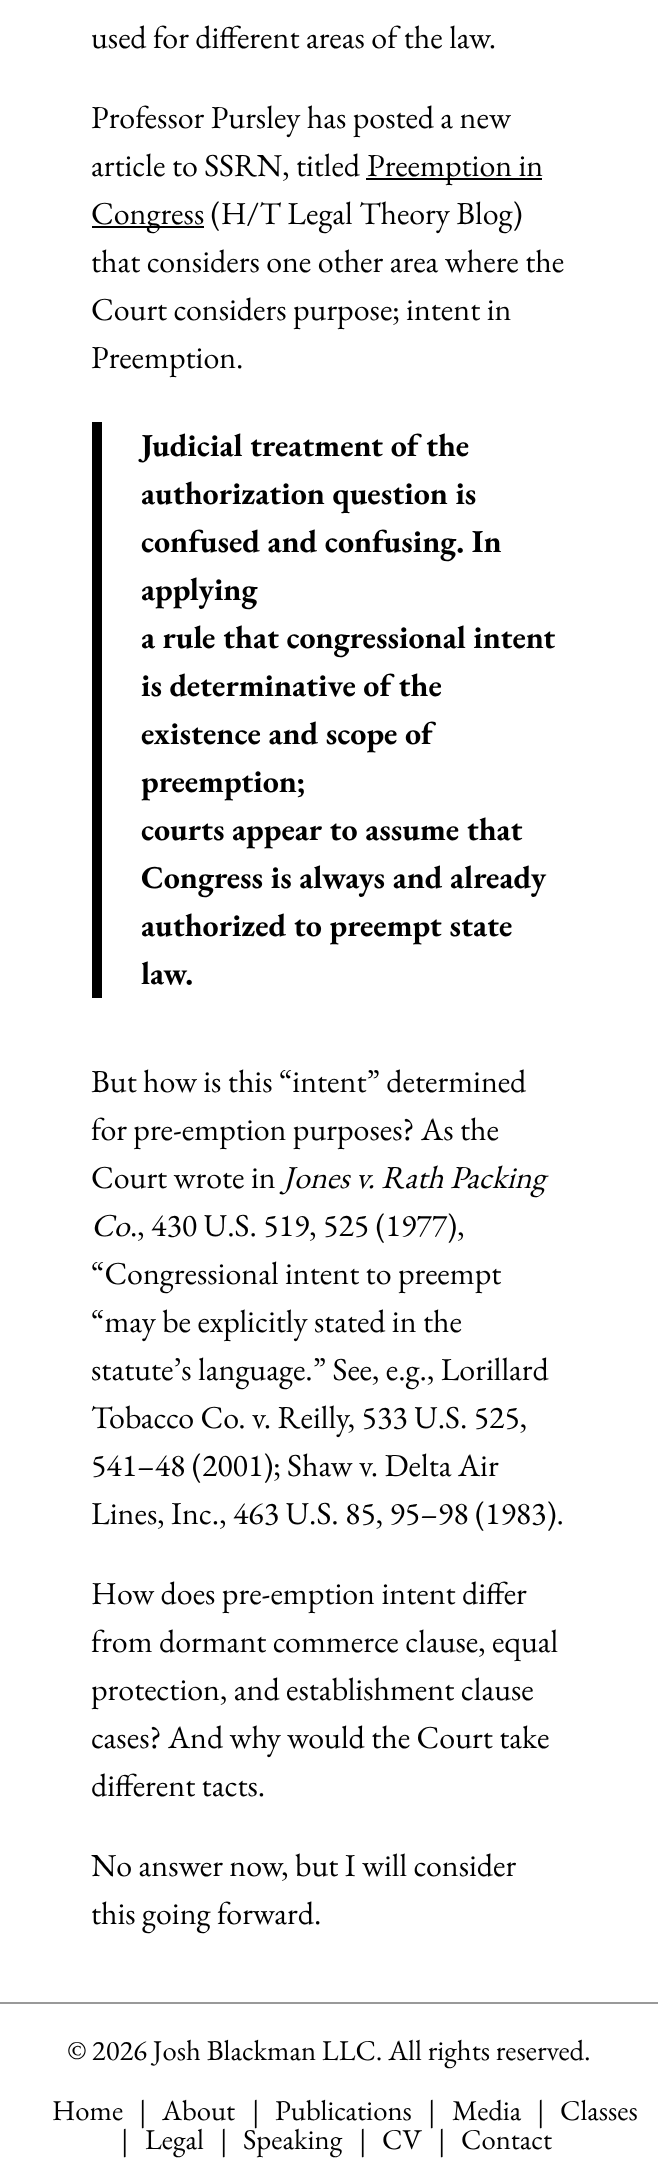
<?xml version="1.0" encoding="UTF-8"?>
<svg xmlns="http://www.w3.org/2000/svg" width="658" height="2158">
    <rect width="100%" height="100%" fill="#FFFFFF"/>
    <text x="91" y="48" font-family="EB Garamond" font-size="32" fill="#000000">used for different areas of the law.</text>
    <text font-family="EB Garamond" font-size="32" fill="#000000">
        <tspan x="91" y="128">Professor Pursley has posted a new</tspan>
        <tspan x="91" y="176">article to SSRN, titled</tspan>
    </text>
    <rect x="366" y="178" width="176" height="2" fill="#000000"/>
    <text x="367" y="176" font-family="EB Garamond" font-size="32" fill="#000000">Preemption in</text>
    <rect x="92" y="226" width="112" height="2" fill="#000000"/>
    <text font-family="EB Garamond" font-size="32" fill="#000000">
        <tspan x="91" y="224">Congress (H/T Legal Theory Blog)</tspan>
        <tspan x="91" y="272">that considers one other area where the</tspan>
        <tspan x="91" y="320">Court considers purpose; intent in</tspan>
        <tspan x="91" y="368">Preemption.</tspan>
    </text>
    <rect x="92" y="422" width="10" height="576" fill="#000000"/>
    <text font-family="EB Garamond" font-size="32" font-weight="700" fill="#000000">
        <tspan x="141" y="456">Judicial treatment of the</tspan>
        <tspan x="141" y="504">authorization question is</tspan>
        <tspan x="141" y="552">confused and confusing. In</tspan>
        <tspan x="141" y="600">applying</tspan>
        <tspan x="141" y="648">a rule that congressional intent</tspan>
        <tspan x="141" y="696">is determinative of the</tspan>
        <tspan x="141" y="744">existence and scope of</tspan>
        <tspan x="141" y="792">preemption;</tspan>
        <tspan x="141" y="840">courts appear to assume that</tspan>
        <tspan x="141" y="888">Congress is always and already</tspan>
        <tspan x="141" y="936">authorized to preempt state</tspan>
        <tspan x="141" y="984">law.</tspan>
    </text>
    <text font-family="EB Garamond" font-size="32" fill="#000000">
        <tspan x="91" y="1092">But how is this “intent” determined</tspan>
        <tspan x="91" y="1140">for pre-emption purposes? As the</tspan>
        <tspan x="91" y="1188">Court wrote in</tspan>
    </text>
    <text x="283" y="1188" font-family="EB Garamond" font-size="32" font-style="italic" fill="#000000">Jones v. Rath Packing</text>
    <text x="91" y="1236" font-family="EB Garamond" font-size="32" font-style="italic" fill="#000000">Co</text>
    <text x="130" y="1236" font-family="EB Garamond" font-size="32" fill="#000000">., 430 U.S. 519, 525 (1977),</text>
    <text font-family="EB Garamond" font-size="32" fill="#000000">
        <tspan x="91" y="1284">“Congressional intent to preempt</tspan>
        <tspan x="91" y="1332">“may be explicitly stated in the</tspan>
        <tspan x="91" y="1380">statute’s language.” See, e.g., Lorillard</tspan>
        <tspan x="91" y="1428">Tobacco Co. v. Reilly, 533 U.S. 525,</tspan>
        <tspan x="91" y="1476">541–48 (2001); Shaw v. Delta Air</tspan>
        <tspan x="91" y="1524">Lines, Inc., 463 U.S. 85, 95–98 (1983).</tspan>
    </text>
    <text font-family="EB Garamond" font-size="32" fill="#000000">
        <tspan x="91" y="1604">How does pre-emption intent differ</tspan>
        <tspan x="91" y="1652">from dormant commerce clause, equal</tspan>
        <tspan x="91" y="1700">protection, and establishment clause</tspan>
        <tspan x="91" y="1748">cases? And why would the Court take</tspan>
        <tspan x="91" y="1796">different tacts.</tspan>
    </text>
    <text font-family="EB Garamond" font-size="32" fill="#000000">
        <tspan x="91" y="1876">No answer now, but I will consider</tspan>
        <tspan x="91" y="1924">this going forward.</tspan>
    </text>
    <rect x="0" y="2002" width="658" height="2" fill="#999999"/>
    <text x="67" y="2060" font-family="EB Garamond" font-size="28.75" fill="#000000">© 2026 Josh Blackman LLC. All rights reserved.</text>
    <text x="52" y="2120" font-family="EB Garamond" font-size="28.75" fill="#000000">Home</text>
    <text x="139" y="2120" font-family="EB Garamond" font-size="28.75" fill="#000000">|</text>
    <text x="162" y="2120" font-family="EB Garamond" font-size="28.75" fill="#000000">About</text>
    <text x="252" y="2120" font-family="EB Garamond" font-size="28.75" fill="#000000">|</text>
    <text x="275" y="2120" font-family="EB Garamond" font-size="28.75" fill="#000000">Publications</text>
    <text x="428" y="2120" font-family="EB Garamond" font-size="28.75" fill="#000000">|</text>
    <text x="452" y="2120" font-family="EB Garamond" font-size="28.75" fill="#000000">Media</text>
    <text x="537" y="2120" font-family="EB Garamond" font-size="28.75" fill="#000000">|</text>
    <text x="560" y="2120" font-family="EB Garamond" font-size="28.75" fill="#000000">Classes</text>
    <text x="121" y="2149" font-family="EB Garamond" font-size="28.75" fill="#000000">|</text>
    <text x="145" y="2149" font-family="EB Garamond" font-size="28.75" fill="#000000">Legal</text>
    <text x="220" y="2149" font-family="EB Garamond" font-size="28.75" fill="#000000">|</text>
    <text x="243" y="2149" font-family="EB Garamond" font-size="28.75" fill="#000000">Speaking</text>
    <text x="359" y="2149" font-family="EB Garamond" font-size="28.75" fill="#000000">|</text>
    <text x="382" y="2149" font-family="EB Garamond" font-size="28.75" fill="#000000">CV</text>
    <text x="438" y="2149" font-family="EB Garamond" font-size="28.75" fill="#000000">|</text>
    <text x="461" y="2149" font-family="EB Garamond" font-size="28.75" fill="#000000">Contact</text>
</svg>
